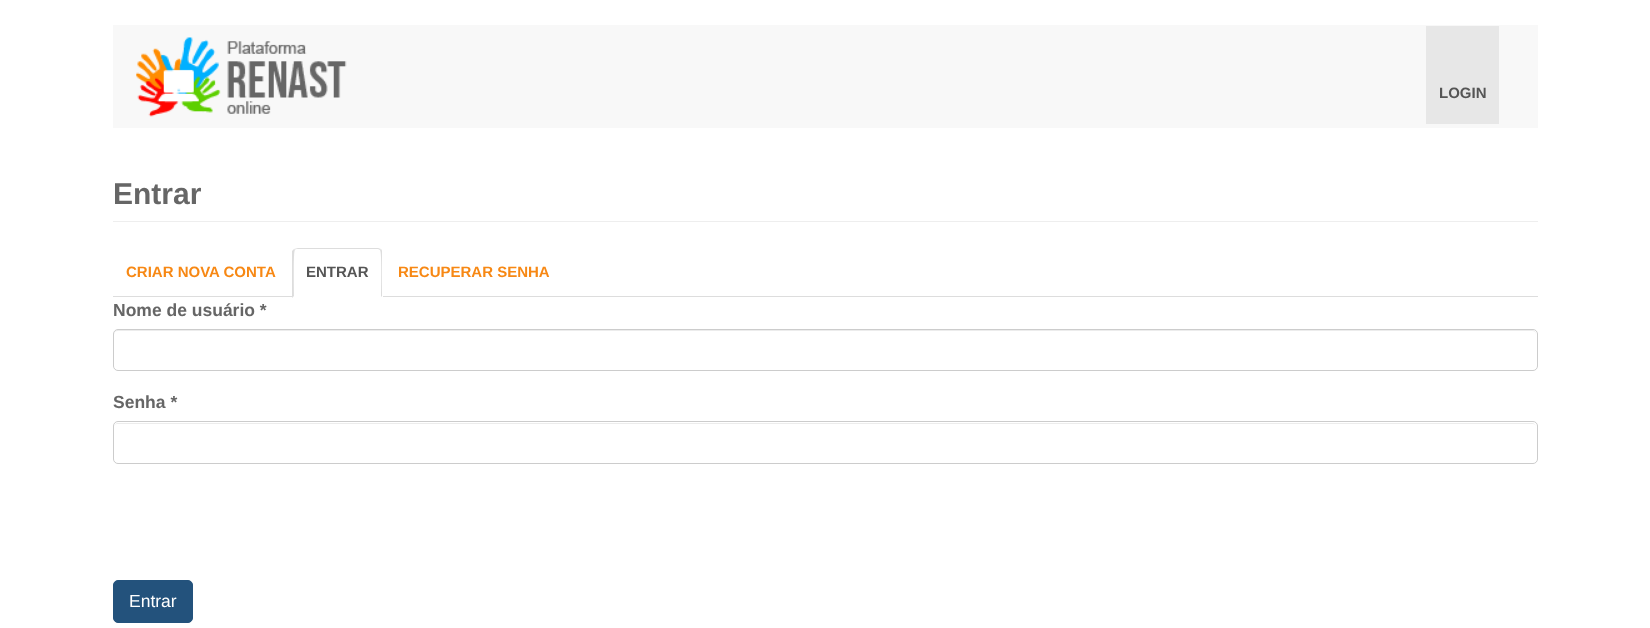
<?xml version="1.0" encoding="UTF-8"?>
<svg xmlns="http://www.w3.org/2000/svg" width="1650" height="628">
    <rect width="100%" height="100%" fill="#FFFFFF"/>
    <rect x="113" y="25" width="1425" height="103" fill="#F8F8F8"/>
    <image x="136" y="37" width="211" height="80" href="img_01.png"/>
    <rect x="1426" y="26" width="73" height="98" fill="#E7E7E7"/>
    <text x="1439" y="98" font-family="Liberation Sans" font-size="15" font-weight="700" fill="#555555">LOGIN</text>
    <rect x="113" y="221" width="1425" height="1" fill="#EEEEEE"/>
    <text x="113" y="204" font-family="Liberation Sans" font-size="30" font-weight="700" fill="#666666">Entrar</text>
    <rect x="113" y="296" width="1425" height="1" fill="#DDDDDD"/>
    <text x="126" y="277" font-family="Liberation Sans" font-size="15" font-weight="700" fill="#F78814">CRIAR NOVA CONTA</text>
    <path d="M 298 248 H 378 C 381 248 383 250 383 253 V 298 H 293 V 253 C 293 250 295 248 298 248 Z" fill="#FFFFFF"/>
    <path d="M 298 248 L 294 249 L 295 250 C 295 249 296 249 298 249 H 378 L 380 250 L 381 249 L 378 248 Z" fill="#DDDDDD"/>
    <path d="M 382 297 V 252 C 382 251 382 250 381 249 L 380 250 C 382 252 381 291 381 296 Z" fill="#DDDDDD"/>
    <path d="M 292 298 L 294 296 C 294 291 293 251 295 250 L 294 249 L 292 251 Z" fill="#DDDDDD"/>
    <text x="306" y="277" font-family="Liberation Sans" font-size="15" font-weight="700" fill="#555555">ENTRAR</text>
    <text x="398" y="277" font-family="Liberation Sans" font-size="15" font-weight="700" fill="#F78814">RECUPERAR SENHA</text>
    <text x="113" y="316" font-family="Liberation Sans" font-size="17.5" font-weight="700" fill="#666666">Nome de usuário *</text>
    <path d="M 118 331 H 1532 C 1535 331 1536 333 1536 335 V 334 C 1536 332 1534 330 1532 330 H 118 C 116 330 114 332 114 334 V 335 C 114 333 115 331 118 331 Z" fill="#ECECEC"/>
    <rect x="113.5" y="329.5" width="1424" height="41" rx="4.5" fill="none" stroke="#CCCCCC"/>
    <text x="113" y="408" font-family="Liberation Sans" font-size="17.5" font-weight="700" fill="#666666">Senha *</text>
    <path d="M 118 424 H 1532 C 1535 424 1536 425 1536 428 V 427 C 1536 425 1534 423 1532 423 H 118 C 116 423 114 425 114 427 V 428 C 114 425 115 424 118 424 Z" fill="#ECECEC"/>
    <rect x="113.5" y="421.5" width="1424" height="42" rx="4.5" fill="none" stroke="#CCCCCC"/>
    <rect x="113.5" y="580.5" width="79" height="42" rx="4.5" fill="#23527C" stroke="#23527C"/>
    <text x="129" y="607" font-family="Liberation Sans" font-size="17.5" fill="#FFFFFF">Entrar</text>
</svg>
